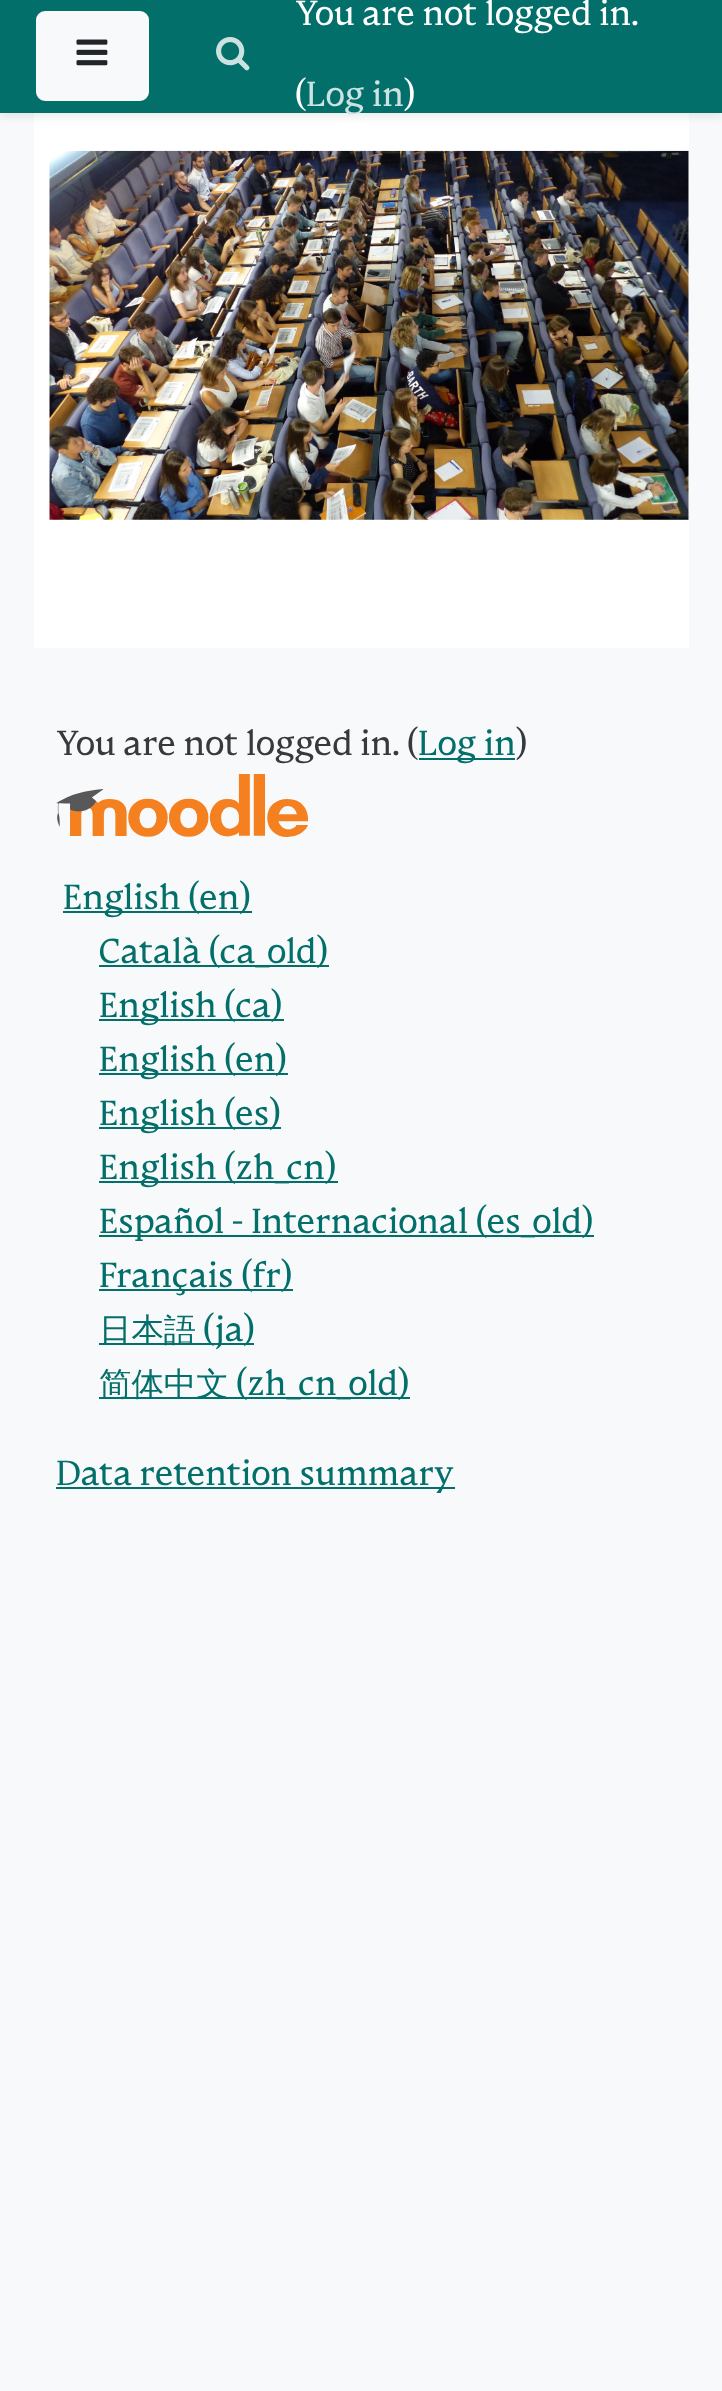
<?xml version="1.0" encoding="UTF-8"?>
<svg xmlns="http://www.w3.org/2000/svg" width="722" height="2391">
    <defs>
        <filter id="blur1" x="-50%" y="-200%" width="200%" height="500%"><feGaussianBlur stdDeviation="4.5"/></filter>
    </defs>
    <rect width="100%" height="100%" fill="#F8F9FA"/>
    <rect x="34" y="113" width="655" height="535" fill="#FFFFFF"/>
    <rect x="0" y="5" width="722" height="112" fill="#000000" fill-opacity="0.08" filter="url(#blur1)"/>
    <rect x="0" y="0" width="722" height="113" fill="#026F6A"/>
    <rect x="37" y="12" width="111" height="88" rx="8" fill="#F8F9FA" stroke="#F8F9FA" stroke-width="2"/>
    <image x="76" y="39" width="32" height="27" href="img_01.png"/>
    <image x="216" y="37" width="34" height="34" href="img_02.png"/>
    <text x="295" y="25" font-family="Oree" font-size="32.4" fill="#FFFFFF">You are not logged in.</text>
    <text x="295" y="106" font-family="Oree" font-size="32.4" fill="#FFFFFF">(</text>
    <text x="306" y="106" font-family="Oree" font-size="32.4" fill="#CDE3E2">Log in</text>
    <text x="404" y="106" font-family="Oree" font-size="32.4" fill="#FFFFFF">)</text>
    <image x="49" y="150" width="640" height="370" href="img_03.png"/>
    <text x="56" y="755" font-family="Oree" font-size="32.4" fill="#373A3C">You are not logged in. (</text>
    <rect x="419" y="758" width="96" height="2" fill="#026F6A"/>
    <text x="418" y="755" font-family="Oree" font-size="32.4" fill="#026F6A">Log in</text>
    <text x="516" y="755" font-family="Oree" font-size="32.4" fill="#373A3C">)</text>
    <image x="56" y="774" width="252" height="63" href="img_04.png"/>
    <rect x="63" y="911" width="189" height="2" fill="#026F6A"/>
    <text x="63" y="909" font-family="Oree" font-size="32.4" fill="#026F6A">English (en)</text>
    <rect x="99" y="965" width="230" height="2" fill="#026F6A"/>
    <text x="99" y="963" font-family="Oree" font-size="32.4" fill="#026F6A">Català (ca_old)</text>
    <rect x="99" y="1019" width="185" height="2" fill="#026F6A"/>
    <text x="99" y="1017" font-family="Oree" font-size="32.4" fill="#026F6A">English (ca)</text>
    <rect x="99" y="1073" width="189" height="2" fill="#026F6A"/>
    <text x="99" y="1071" font-family="Oree" font-size="32.4" fill="#026F6A">English (en)</text>
    <rect x="99" y="1127" width="182" height="2" fill="#026F6A"/>
    <text x="99" y="1125" font-family="Oree" font-size="32.4" fill="#026F6A">English (es)</text>
    <rect x="99" y="1181" width="239" height="2" fill="#026F6A"/>
    <text x="99" y="1179" font-family="Oree" font-size="32.4" fill="#026F6A">English (zh_cn)</text>
    <rect x="99" y="1235" width="495" height="2" fill="#026F6A"/>
    <text x="99" y="1233" font-family="Oree" font-size="32.4" fill="#026F6A">Español - Internacional (es_old)</text>
    <rect x="99" y="1289" width="194" height="2" fill="#026F6A"/>
    <text x="99" y="1287" font-family="Oree" font-size="32.4" fill="#026F6A">Français (fr)</text>
    <rect x="99" y="1343" width="155" height="2" fill="#026F6A"/>
    <text x="99" y="1341" font-family="WenQuanYi Zen Hei" font-size="32.4" font-weight="500" fill="#026F6A">日本語</text>
    <text x="203" y="1341" font-family="Oree" font-size="32.4" fill="#026F6A">(ja)</text>
    <rect x="99" y="1397" width="311" height="2" fill="#026F6A"/>
    <text x="99" y="1395" font-family="WenQuanYi Zen Hei" font-size="32.4" font-weight="500" fill="#026F6A">简体中文</text>
    <text x="236" y="1395" font-family="Oree" font-size="32.4" fill="#026F6A">(zh_cn_old)</text>
    <rect x="56" y="1487" width="399" height="2" fill="#026F6A"/>
    <text x="56" y="1485" font-family="Oree" font-size="32.4" fill="#026F6A">Data retention summary</text>
</svg>
